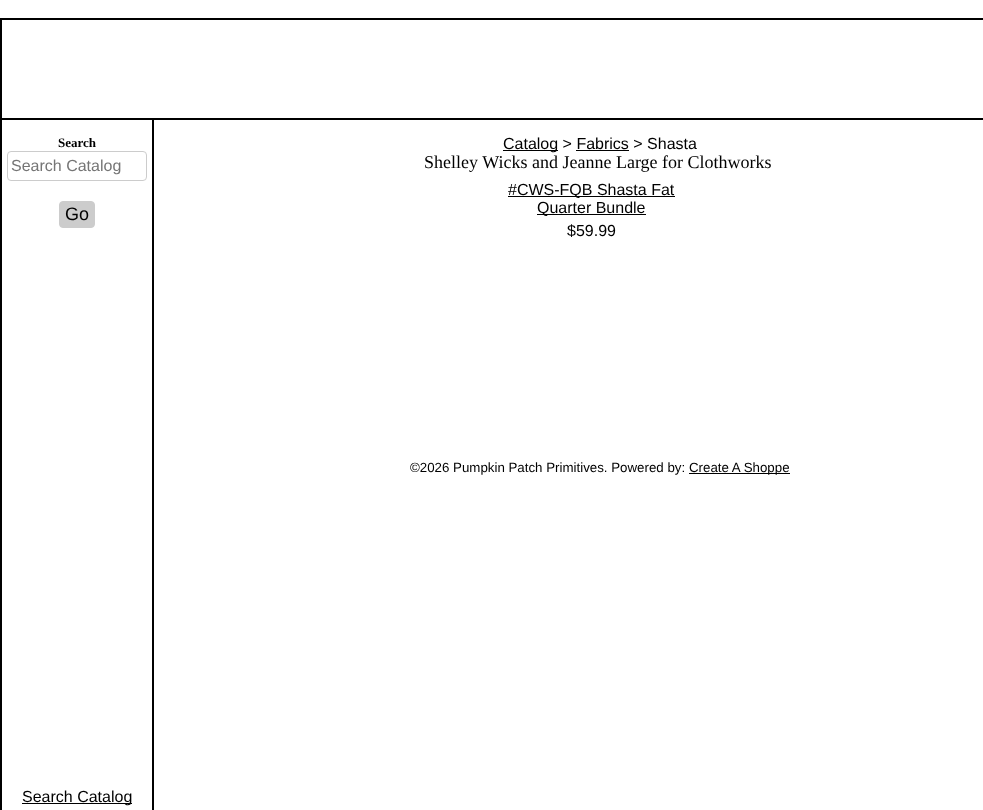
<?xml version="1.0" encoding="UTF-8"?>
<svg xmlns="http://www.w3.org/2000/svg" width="983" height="810">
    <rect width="100%" height="100%" fill="#FFFFFF"/>
    <rect x="0.5" y="18.5" width="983" height="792" fill="none" stroke="#000000"/>
    <rect x="1.5" y="19.5" width="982" height="99" fill="none" stroke="#000000"/>
    <rect x="1.5" y="119.5" width="151" height="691" fill="none" stroke="#000000"/>
    <text x="58" y="147" font-family="Liberation Serif" font-size="13" font-weight="700" fill="#000000">Search</text>
    <rect x="7.5" y="151.5" width="139" height="29" rx="3.5" fill="none" stroke="#CCCCCC"/>
    <text x="11" y="171" font-family="Liberation Sans" font-size="16" fill="#757575">Search Catalog</text>
    <rect x="59.5" y="201.5" width="35" height="26" rx="3.5" fill="#CCCCCC" stroke="#CCCCCC"/>
    <text x="65" y="220" font-family="Liberation Sans" font-size="18" fill="#000000">Go</text>
    <rect x="22" y="803" width="110" height="1" fill="#000000"/>
    <text x="22" y="802" font-family="Liberation Sans" font-size="16" fill="#000000">Search Catalog</text>
    <rect x="153.5" y="119.5" width="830" height="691" fill="none" stroke="#000000"/>
    <rect x="503" y="150" width="55" height="1" fill="#000000"/>
    <text x="503" y="149" font-family="Liberation Sans" font-size="16" fill="#000000">Catalog &gt; Fabrics &gt; Shasta</text>
    <rect x="576" y="150" width="53" height="1" fill="#000000"/>
    <text x="424" y="168" font-family="Liberation Serif" font-size="18" fill="#000000">Shelley Wicks and Jeanne Large for Clothworks</text>
    <rect x="508" y="196" width="167" height="1" fill="#000000"/>
    <text x="508" y="195" font-family="Liberation Sans" font-size="16" fill="#000000">#CWS-FQB Shasta Fat</text>
    <rect x="537" y="214" width="109" height="1" fill="#000000"/>
    <text x="537" y="213" font-family="Liberation Sans" font-size="16" fill="#000000">Quarter Bundle</text>
    <text x="567" y="236" font-family="Liberation Sans" font-size="16" fill="#000000">$59.99</text>
    <text x="410" y="472" font-family="Liberation Sans" font-size="13.3" fill="#000000">©2026 Pumpkin Patch Primitives. Powered by:</text>
    <rect x="689" y="473" width="101" height="1" fill="#000000"/>
    <text x="689" y="472" font-family="Liberation Sans" font-size="13.3" fill="#000000">Create A Shoppe</text>
</svg>
